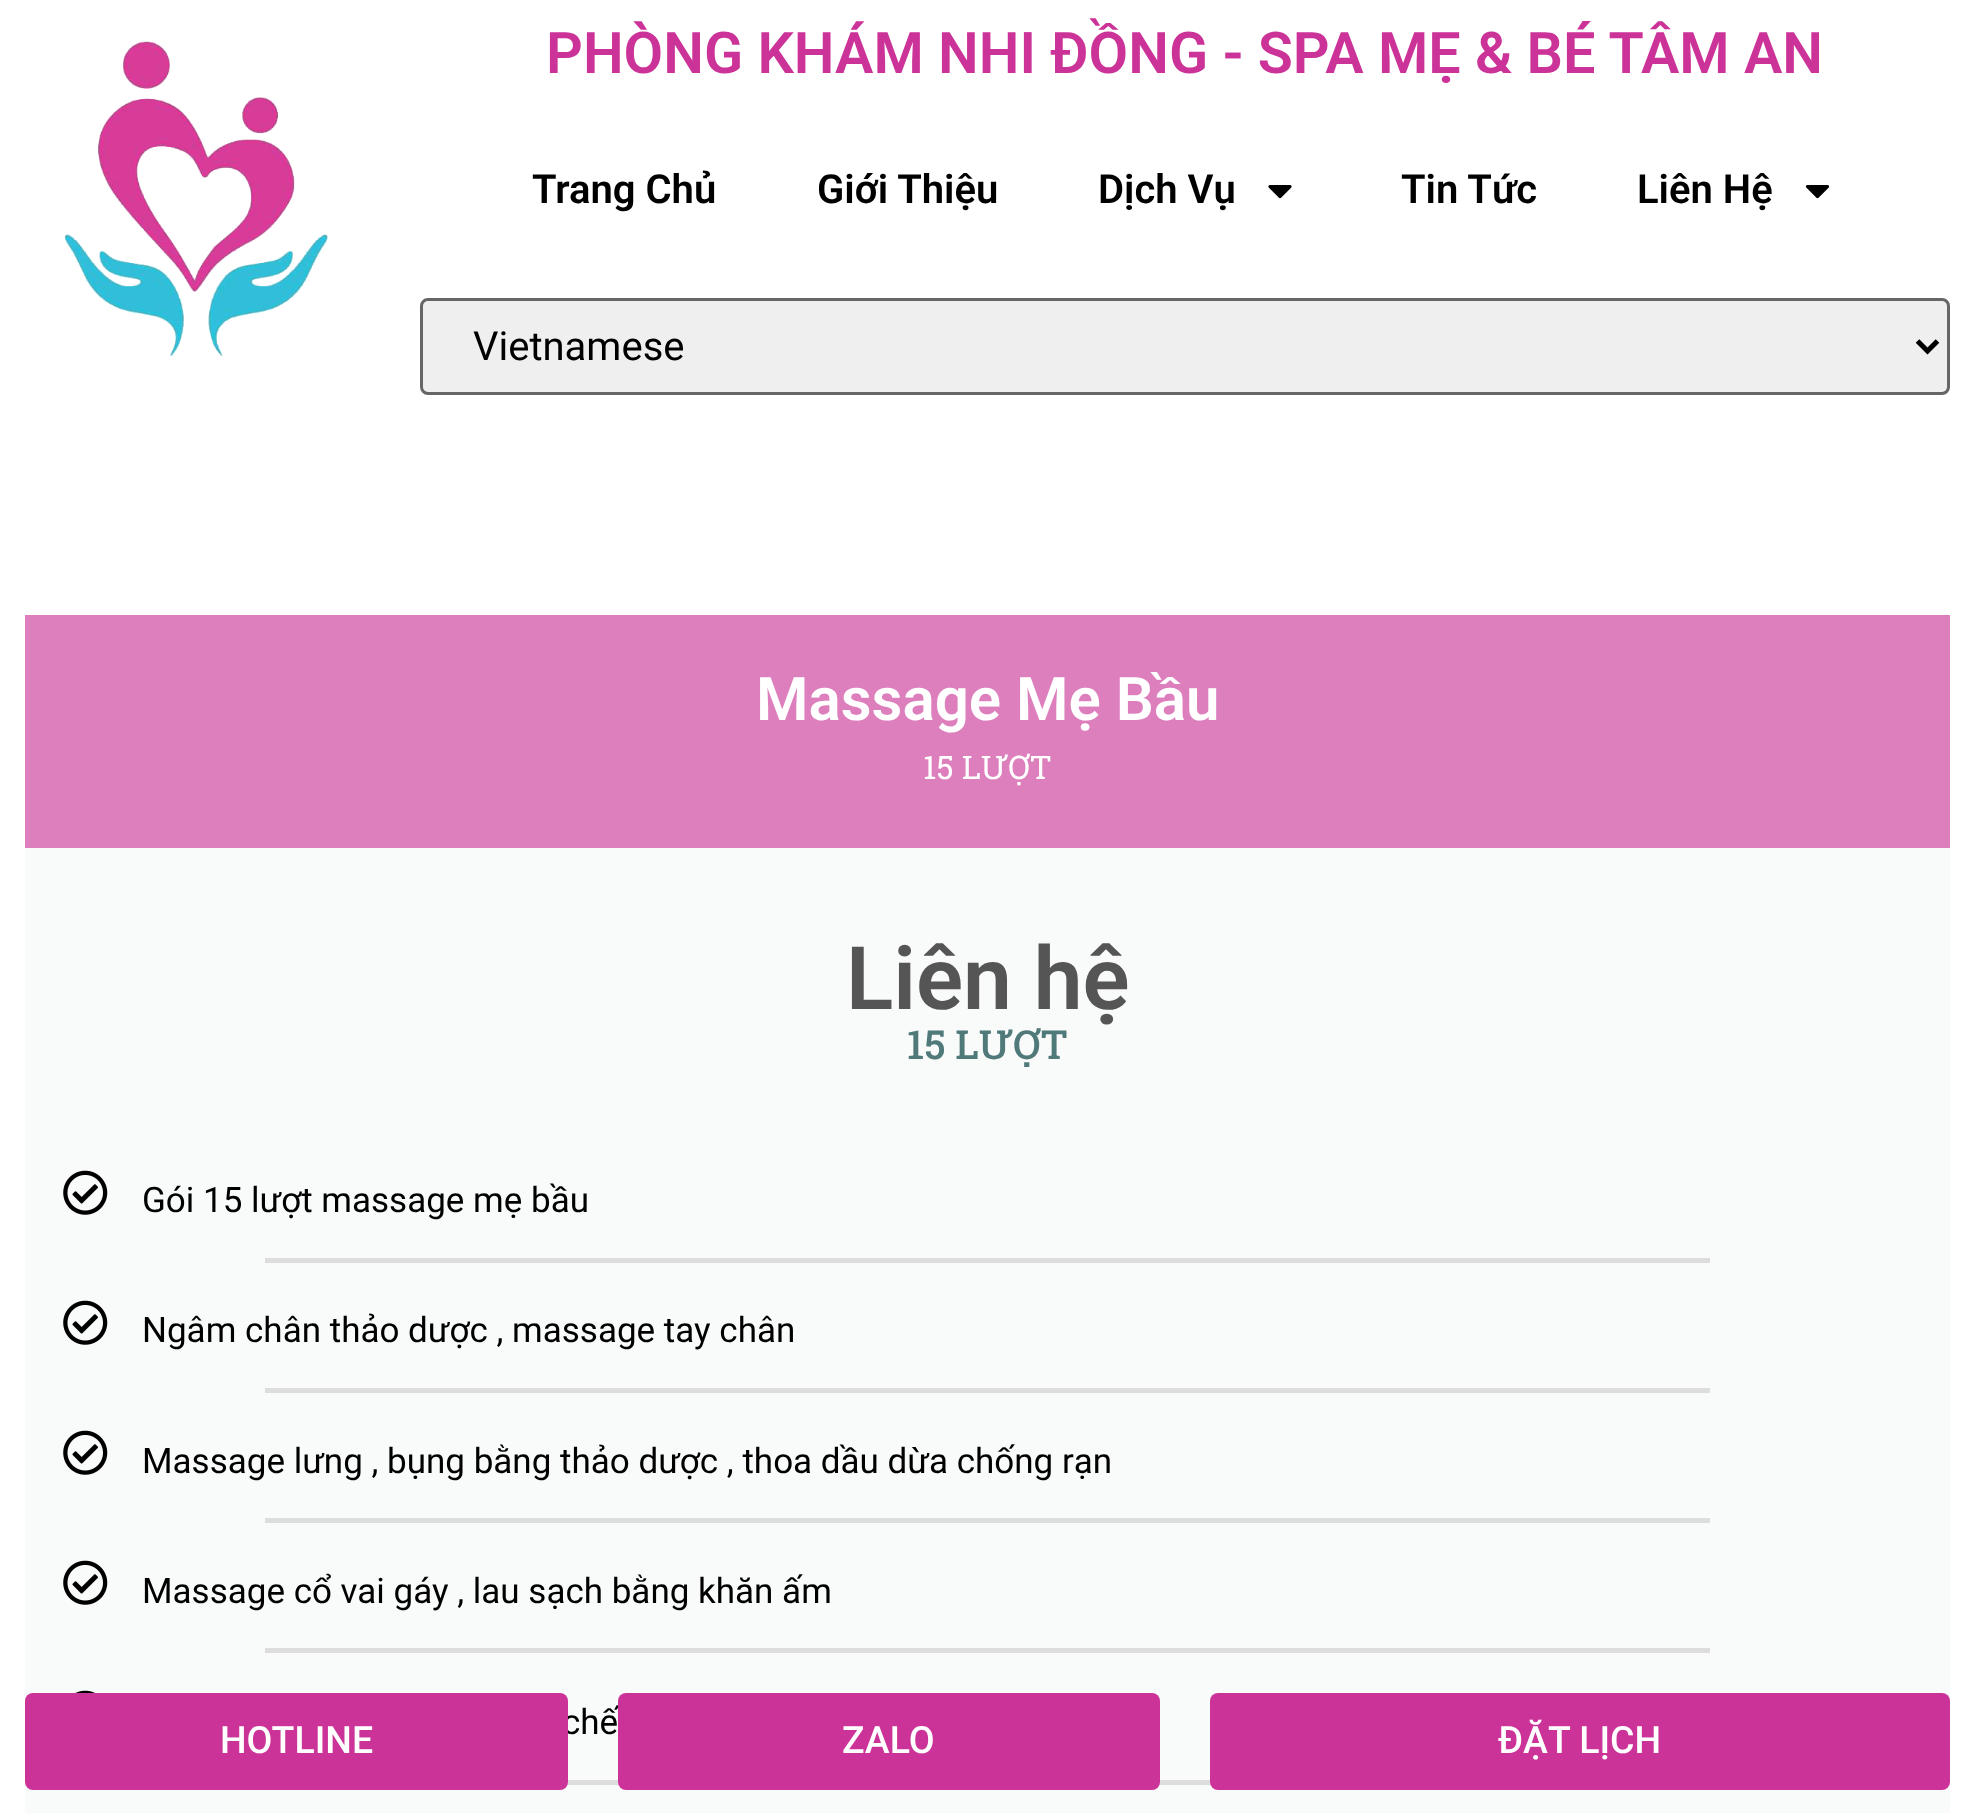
<?xml version="1.0" encoding="UTF-8"?>
<svg xmlns="http://www.w3.org/2000/svg" width="1975" height="1813">
    <rect width="100%" height="100%" fill="#FFFFFF"/>
    <image x="64" y="41" width="264" height="315" href="img_01.png"/>
    <text x="546" y="73" font-family="Roboto" font-size="57.5" font-weight="600" fill="#CC3399">PHÒNG KHÁM NHI ĐỒNG - SPA MẸ &amp; BÉ TÂM AN</text>
    <text x="532" y="203" font-family="Roboto" font-size="40" font-weight="600" fill="#000000">Trang Chủ</text>
    <text x="817" y="203" font-family="Roboto" font-size="40" font-weight="600" fill="#000000">Giới Thiệu</text>
    <text x="1098" y="203" font-family="Roboto" font-size="40" font-weight="600" fill="#000000">Dịch Vụ</text>
    <image x="1268" y="185" width="24" height="14" href="img_02.png"/>
    <text x="1401" y="203" font-family="Roboto" font-size="40" font-weight="600" fill="#000000">Tin Tức</text>
    <text x="1637" y="203" font-family="Roboto" font-size="40" font-weight="600" fill="#000000">Liên Hệ</text>
    <image x="1805" y="185" width="25" height="14" href="img_03.png"/>
    <rect x="421.5" y="299.5" width="1527" height="94" rx="6.5" fill="#EFEFEF" stroke="#666666" stroke-width="3"/>
    <path d="M 1917.5 341 L 1927.5 351 L 1937.5 341" fill="none" stroke="#000000" stroke-width="5"/>
    <text x="473" y="360" font-family="Roboto" font-size="40" fill="#000000">Vietnamese</text>
    <rect x="25" y="848" width="1925" height="965" fill="#F9FAFA"/>
    <rect x="25" y="615" width="1925" height="233" fill="#DD7EBD"/>
    <text x="756" y="720" font-family="Roboto" font-size="60" font-weight="600" fill="#FFFFFF">Massage Mẹ Bầu</text>
    <text x="923" y="779" font-family="Roboto Slab" font-size="32.5" fill="#FFFFFF">15 LƯỢT</text>
    <text x="846" y="1009" font-family="Roboto" font-size="87.5" font-weight="600" fill="#555555">Liên hệ</text>
    <text x="907" y="1059" font-family="Roboto Slab" font-size="40" font-weight="500" fill="#507A7A">15 LƯỢT</text>
    <image x="63" y="1170" width="45" height="45" href="img_04.png"/>
    <text x="142" y="1212" font-family="Roboto" font-size="35" fill="#000000">Gói 15 lượt massage mẹ bầu</text>
    <rect x="265" y="1258" width="1445" height="5" fill="#DDDDDD"/>
    <image x="63" y="1300" width="45" height="45" href="img_04.png"/>
    <text x="142" y="1342" font-family="Roboto" font-size="35" fill="#000000">Ngâm chân thảo dược , massage tay chân</text>
    <rect x="265" y="1388" width="1445" height="5" fill="#DDDDDD"/>
    <image x="63" y="1430" width="45" height="45" href="img_04.png"/>
    <text x="142" y="1473" font-family="Roboto" font-size="35" fill="#000000">Massage lưng , bụng bằng thảo dược , thoa dầu dừa chống rạn</text>
    <rect x="265" y="1518" width="1445" height="5" fill="#DDDDDD"/>
    <image x="63" y="1560" width="45" height="45" href="img_04.png"/>
    <text x="142" y="1603" font-family="Roboto" font-size="35" fill="#000000">Massage cổ vai gáy , lau sạch bằng khăn ấm</text>
    <rect x="265" y="1648" width="1445" height="5" fill="#DDDDDD"/>
    <image x="75" y="1690" width="20" height="3" href="img_05.png"/>
    <text x="562" y="1734" font-family="Roboto" font-size="35" fill="#000000">chế</text>
    <rect x="567" y="1780" width="644" height="5" fill="#DDDDDD"/>
    <rect x="25" y="1693" width="543" height="97" rx="8" fill="#CC3399"/>
    <text x="220" y="1753" font-family="Roboto" font-size="37.5" font-weight="500" fill="#FFFFFF">HOTLINE</text>
    <rect x="618" y="1693" width="542" height="97" rx="8" fill="#CC3399"/>
    <text x="842" y="1753" font-family="Roboto" font-size="37.5" font-weight="500" fill="#FFFFFF">ZALO</text>
    <rect x="1210" y="1693" width="740" height="97" rx="8" fill="#CC3399"/>
    <text x="1498" y="1753" font-family="Roboto" font-size="37.5" font-weight="500" fill="#FFFFFF">ĐẶT LỊCH</text>
</svg>
